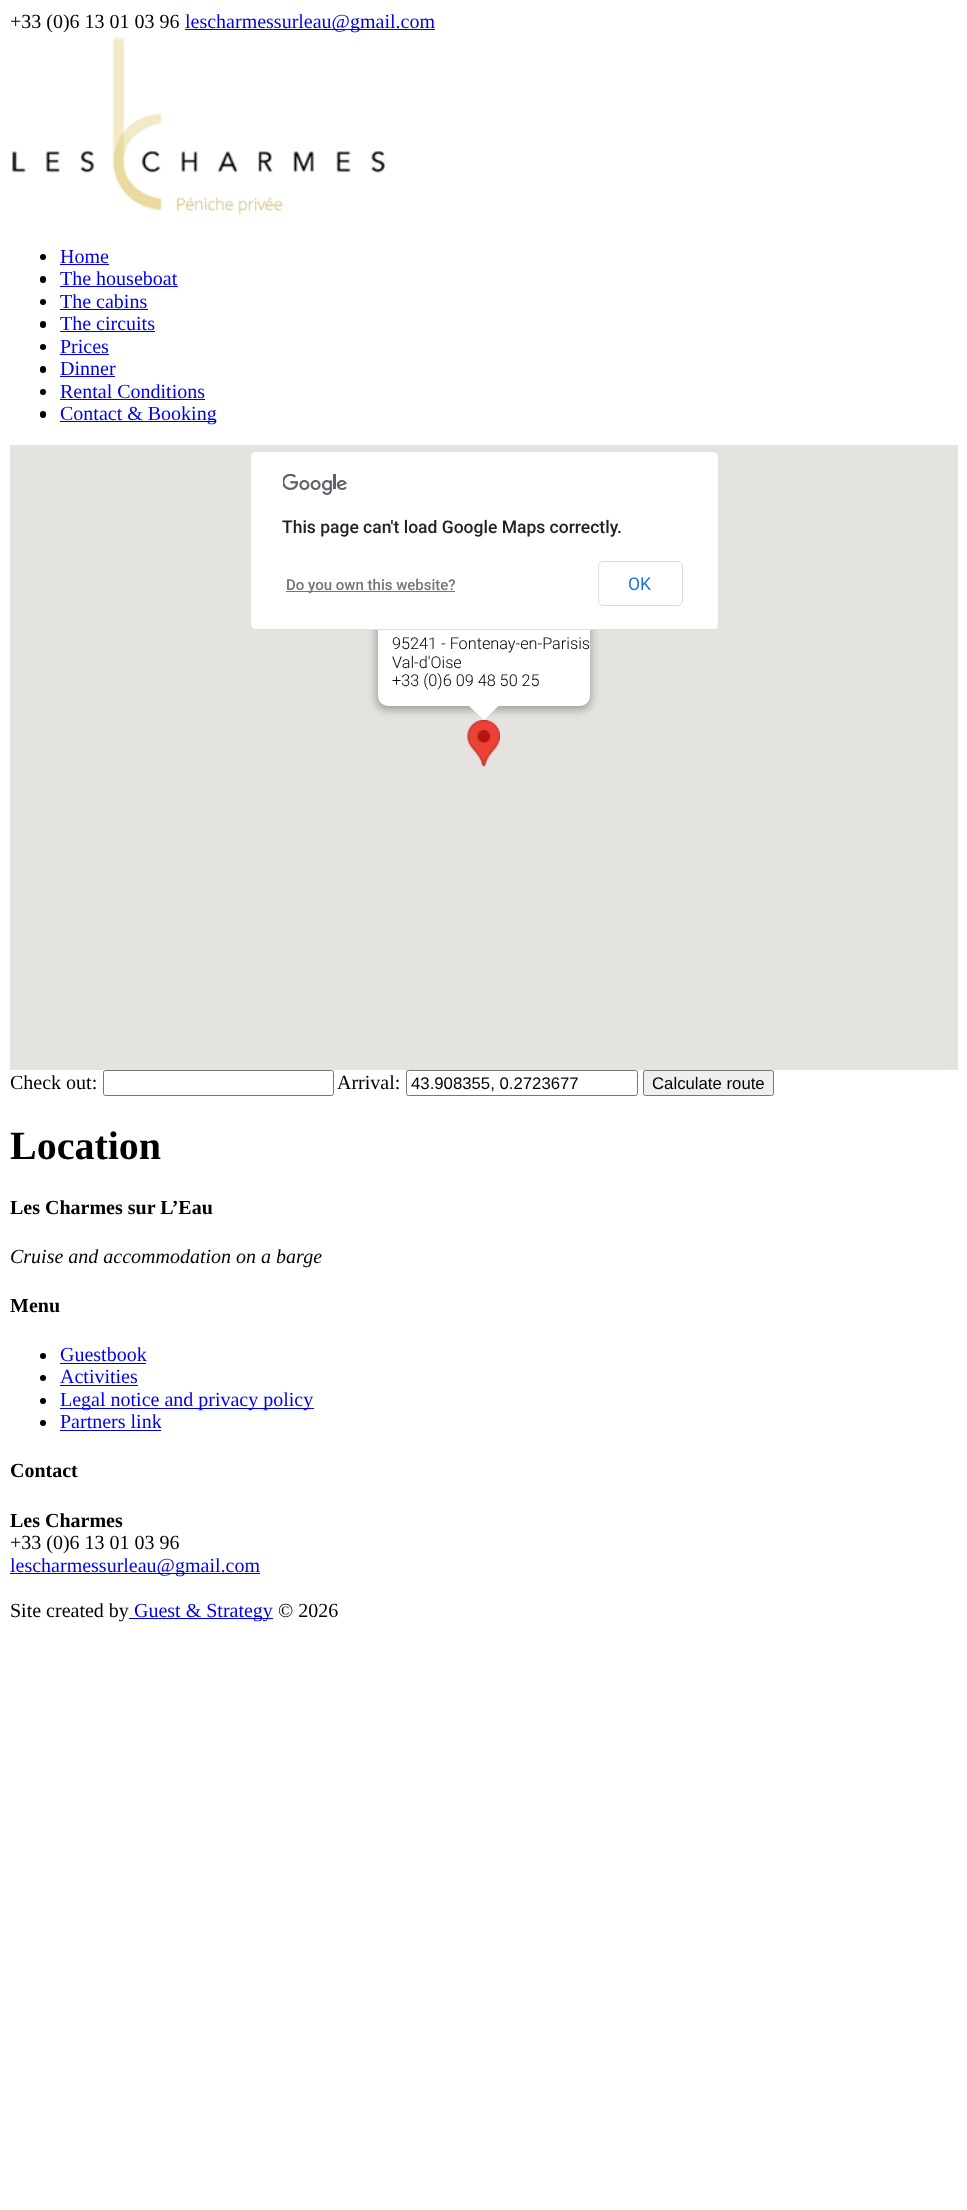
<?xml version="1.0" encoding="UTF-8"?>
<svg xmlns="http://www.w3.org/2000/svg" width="967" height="2210">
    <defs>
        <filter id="blur1" x="-50%" y="-200%" width="200%" height="500%"><feGaussianBlur stdDeviation="4.5"/></filter>
    </defs>
    <rect width="100%" height="100%" fill="#FFFFFF"/>
    <text x="10" y="28" font-family="Liberation Serif" font-size="20" fill="#000000">+33 (0)6 13 01 03 96</text>
    <rect x="185" y="29" width="250" height="1" fill="#0000EE"/>
    <text x="185" y="28" font-family="Liberation Serif" font-size="20" fill="#0000EE">lescharmessurleau@gmail.com</text>
    <image x="12" y="37" width="373" height="178" href="img_01.png"/>
    <circle cx="43" cy="257" r="3" fill="#000000"/>
    <text x="60" y="263" font-family="Liberation Serif" font-size="20" fill="#0000EE">Home</text>
    <rect x="60" y="264" width="49" height="1" fill="#0000EE"/>
    <rect x="40" y="276" width="6" height="7" rx="3" fill="#000000"/>
    <text x="60" y="285" font-family="Liberation Serif" font-size="20" fill="#0000EE">The houseboat</text>
    <rect x="60" y="286" width="118" height="1" fill="#0000EE"/>
    <circle cx="43" cy="302" r="3" fill="#000000"/>
    <text x="60" y="308" font-family="Liberation Serif" font-size="20" fill="#0000EE">The cabins</text>
    <rect x="60" y="309" width="88" height="1" fill="#0000EE"/>
    <rect x="40" y="321" width="6" height="7" rx="3" fill="#000000"/>
    <text x="60" y="330" font-family="Liberation Serif" font-size="20" fill="#0000EE">The circuits</text>
    <rect x="60" y="331" width="95" height="1" fill="#0000EE"/>
    <circle cx="43" cy="347" r="3" fill="#000000"/>
    <text x="60" y="353" font-family="Liberation Serif" font-size="20" fill="#0000EE">Prices</text>
    <rect x="60" y="354" width="49" height="1" fill="#0000EE"/>
    <rect x="40" y="366" width="6" height="7" rx="3" fill="#000000"/>
    <text x="60" y="375" font-family="Liberation Serif" font-size="20" fill="#0000EE">Dinner</text>
    <rect x="60" y="376" width="55" height="1" fill="#0000EE"/>
    <circle cx="43" cy="392" r="3" fill="#000000"/>
    <text x="60" y="398" font-family="Liberation Serif" font-size="20" fill="#0000EE">Rental Conditions</text>
    <rect x="60" y="399" width="145" height="1" fill="#0000EE"/>
    <rect x="40" y="411" width="6" height="7" rx="3" fill="#000000"/>
    <rect x="60" y="421" width="156" height="1" fill="#0000EE"/>
    <text x="60" y="420" font-family="Liberation Serif" font-size="20" fill="#0000EE">Contact &amp; Booking</text>
    <rect x="10" y="445" width="948" height="625" fill="#E5E3DF"/>
    <image x="467" y="720" width="33" height="47" href="img_03.png"/>
    <rect x="376" y="521" width="215" height="189" rx="11" fill="#000000" fill-opacity="0.3" filter="url(#blur1)"/>
    <rect x="378" y="520" width="212" height="186" rx="10" fill="#FFFFFF"/>
    <rect x="250" y="451" width="469" height="179" rx="6" fill="#FFFFFF"/>
    <rect x="250.5" y="451.5" width="468" height="178" rx="5.5" fill="none" stroke="#000000" stroke-opacity="0.12"/>
    <image x="283" y="474" width="64" height="21" href="img_02.png"/>
    <text x="282" y="533" font-family="Roboto" font-size="17.5" font-weight="500" fill="#212121">This page can't load Google Maps correctly.</text>
    <rect x="286" y="591" width="169" height="1" fill="#757575"/>
    <text x="286" y="590" font-family="Roboto" font-size="15" font-weight="500" fill="#757575">Do you own this website?</text>
    <rect x="598.5" y="561.5" width="84" height="44" rx="4.5" fill="none" stroke="#DADCE0"/>
    <text x="628" y="590" font-family="Roboto" font-size="17.5" fill="#1A73E8">OK</text>
    <text font-family="Roboto" font-size="16.25" font-weight="300" fill="#000000">
        <tspan x="392" y="649">95241 - Fontenay-en-Parisis</tspan>
        <tspan x="392" y="668">Val-d'Oise</tspan>
        <tspan x="392" y="686">+33 (0)6 09 48 50 25</tspan>
    </text>
    <path d="M 469 705 V 706 L 484 720 L 499.5 705 Z" fill="#FFFFFF"/>
    <text x="10" y="1089" font-family="Liberation Serif" font-size="20" fill="#000000">Check out:</text>
    <rect x="103.5" y="1070.5" width="230" height="25" rx="2" fill="none" stroke="#767676"/>
    <text x="337" y="1089" font-family="Liberation Serif" font-size="20" fill="#000000">Arrival:</text>
    <rect x="406.5" y="1070.5" width="231" height="25" rx="2" fill="none" stroke="#767676"/>
    <text x="411" y="1089" font-family="Liberation Sans" font-size="16.75" fill="#000000">43.908355, 0.2723677</text>
    <rect x="643.5" y="1070.5" width="130" height="25" rx="2" fill="#EFEFEF" stroke="#767676"/>
    <text x="652" y="1089" font-family="Liberation Sans" font-size="16.75" fill="#000000">Calculate route</text>
    <text x="10" y="1159" font-family="Liberation Serif" font-size="40" font-weight="700" fill="#000000">Location</text>
    <text x="10" y="1214" font-family="Liberation Serif" font-size="20" font-weight="700" fill="#000000">Les Charmes sur L’Eau</text>
    <text x="10" y="1263" font-family="Liberation Serif" font-size="20" font-style="italic" fill="#000000">Cruise and accommodation on a barge</text>
    <text x="10" y="1312" font-family="Liberation Serif" font-size="20" font-weight="700" fill="#000000">Menu</text>
    <circle cx="43" cy="1356" r="3" fill="#000000"/>
    <text x="60" y="1361" font-family="Liberation Serif" font-size="20" fill="#0000EE">Guestbook</text>
    <rect x="60" y="1363" width="86" height="1" fill="#0000EE"/>
    <circle cx="43" cy="1378" r="3" fill="#000000"/>
    <text x="60" y="1383" font-family="Liberation Serif" font-size="20" fill="#0000EE">Activities</text>
    <rect x="60" y="1385" width="78" height="1" fill="#0000EE"/>
    <circle cx="43" cy="1401" r="3" fill="#000000"/>
    <rect x="60" y="1408" width="254" height="1" fill="#0000EE"/>
    <text x="60" y="1406" font-family="Liberation Serif" font-size="20" fill="#0000EE">Legal notice and privacy policy</text>
    <circle cx="43" cy="1423" r="3" fill="#000000"/>
    <text x="60" y="1428" font-family="Liberation Serif" font-size="20" fill="#0000EE">Partners link</text>
    <rect x="60" y="1430" width="101" height="1" fill="#0000EE"/>
    <text x="10" y="1477" font-family="Liberation Serif" font-size="20" font-weight="700" fill="#000000">Contact</text>
    <text x="10" y="1527" font-family="Liberation Serif" font-size="20" font-weight="700" fill="#000000">Les Charmes</text>
    <text x="10" y="1549" font-family="Liberation Serif" font-size="20" fill="#000000">+33 (0)6 13 01 03 96</text>
    <rect x="10" y="1573" width="250" height="1" fill="#0000EE"/>
    <text x="10" y="1572" font-family="Liberation Serif" font-size="20" fill="#0000EE">lescharmessurleau@gmail.com</text>
    <text x="10" y="1617" font-family="Liberation Serif" font-size="20" fill="#000000">Site created by</text>
    <rect x="129" y="1618" width="144" height="1" fill="#0000EE"/>
    <text x="134" y="1617" font-family="Liberation Serif" font-size="20" fill="#0000EE">Guest &amp; Strategy</text>
    <text x="278" y="1617" font-family="Liberation Serif" font-size="20" fill="#000000">© 2026</text>
</svg>
